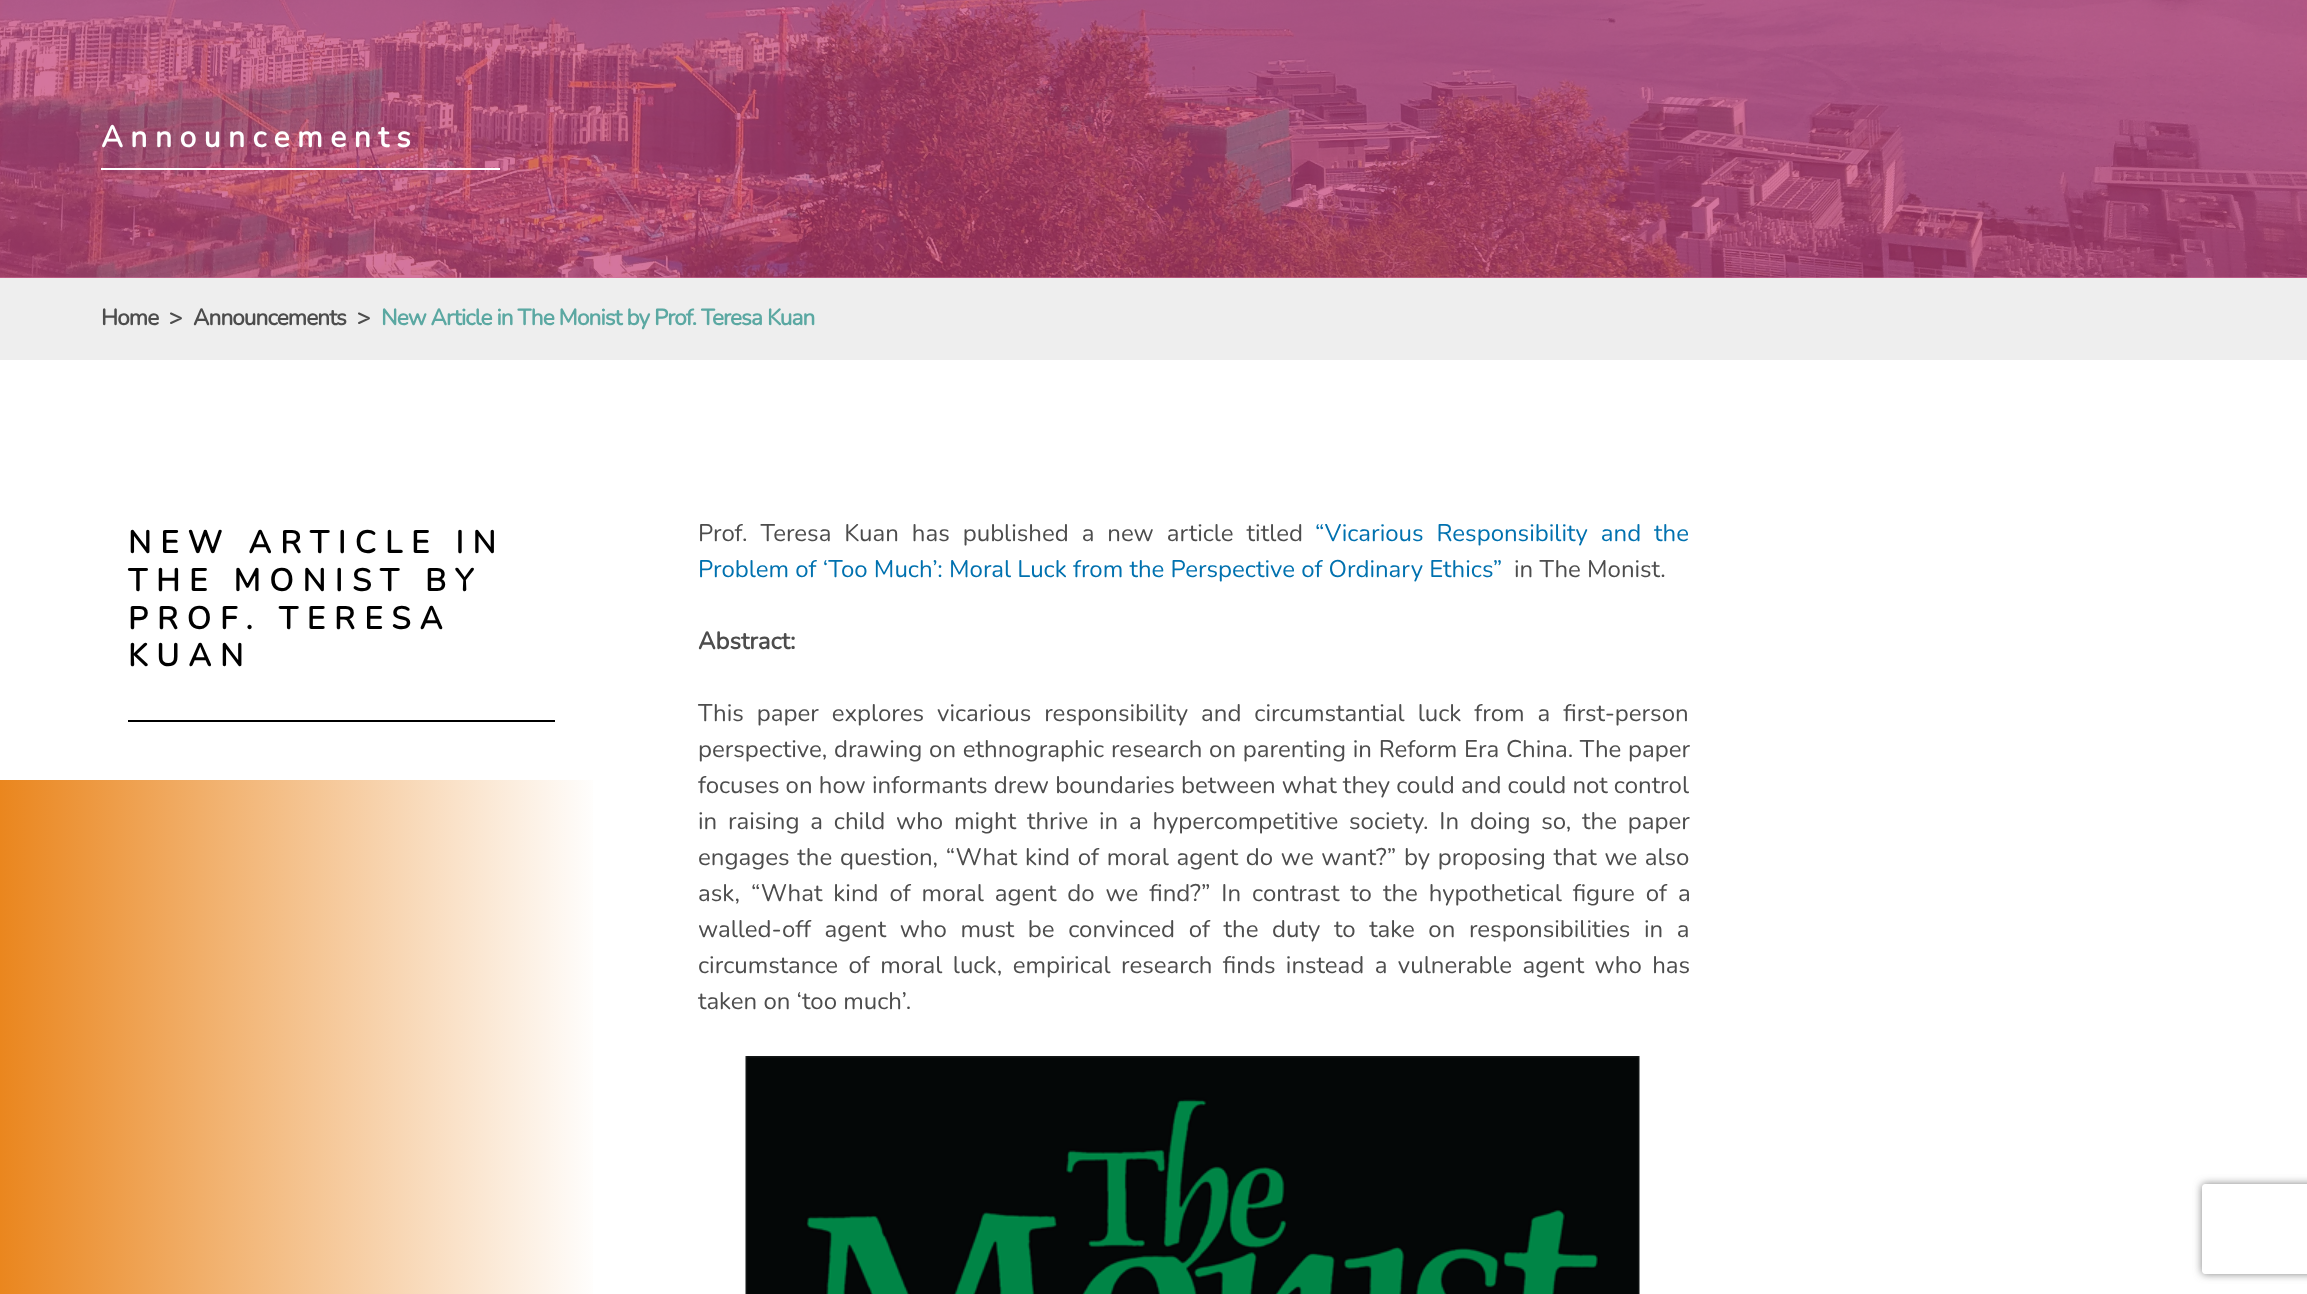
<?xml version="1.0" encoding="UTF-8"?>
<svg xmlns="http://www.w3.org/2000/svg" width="2307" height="1294">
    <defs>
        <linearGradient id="g1" gradientUnits="userSpaceOnUse" x1="0" y1="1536" x2="600" y2="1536"><stop offset="0" stop-color="#EA861E"/><stop offset="1" stop-color="#FFFFFF"/></linearGradient>
        <clipPath id="clip1"><path d="M 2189 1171 H 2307 V 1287 H 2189 Z M 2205 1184 H 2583 C 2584.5 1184 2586 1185.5 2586 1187 V 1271 C 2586 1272.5 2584.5 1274 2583 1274 H 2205 C 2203.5 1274 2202 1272.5 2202 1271 V 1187 C 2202 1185.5 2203.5 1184 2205 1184 Z" clip-rule="evenodd"/></clipPath>
        <filter id="blur1" x="-50%" y="-200%" width="200%" height="500%"><feGaussianBlur stdDeviation="4"/></filter>
    </defs>
    <rect width="100%" height="100%" fill="#FFFFFF"/>
    <rect x="0" y="277" width="2307" height="1" fill="#D4759E"/>
    <image x="0" y="0" width="2307" height="278" href="img_01.png"/>
    <text x="101" y="147" font-family="Nunito" font-size="30" font-weight="700" letter-spacing="7.5" fill="#FFFFFF">Announcements</text>
    <rect x="101" y="168" width="399" height="2" fill="#FFFFFF"/>
    <rect x="0" y="278" width="2307" height="82" fill="#EEEEEE"/>
    <text x="101" y="325" font-family="Nunito" font-size="22.5" font-weight="700" letter-spacing="-0.9" fill="#4D4D4D">Home</text>
    <text x="169" y="325" font-family="Nunito" font-size="22.5" font-weight="700" letter-spacing="-0.9" fill="#4D4D4D">&gt;</text>
    <text x="193" y="325" font-family="Nunito" font-size="22.5" font-weight="700" letter-spacing="-0.9" fill="#4D4D4D">Announcements</text>
    <text x="357" y="325" font-family="Nunito" font-size="22.5" font-weight="700" letter-spacing="-0.9" fill="#4D4D4D">&gt;</text>
    <text x="381" y="325" font-family="Nunito" font-size="22.5" font-weight="700" letter-spacing="-0.9" fill="#5BA8A2">New Article in The Monist by Prof. Teresa Kuan</text>
    <rect x="0" y="780" width="593" height="514" fill="url(#g1)"/>
    <text font-family="Nunito" font-size="31.5" font-weight="700" letter-spacing="9" fill="#000000">
        <tspan x="128" y="553">NEW ARTICLE IN</tspan>
        <tspan x="128" y="591">THE MONIST BY</tspan>
        <tspan x="128" y="629">PROF. TERESA</tspan>
        <tspan x="128" y="666">KUAN</tspan>
    </text>
    <rect x="128" y="720" width="427" height="2" fill="#000000"/>
    <text x="698" y="541" word-spacing="6.75" font-family="Nunito" font-size="24" font-weight="200" fill="#4D4D4D">Prof. Teresa Kuan has published a new article titled</text>
    <text x="1315" y="541" word-spacing="6.75" font-family="Nunito" font-size="24" font-weight="200" fill="#0071AF">“Vicarious Responsibility and the</text>
    <text x="698" y="577" font-family="Nunito" font-size="24" font-weight="200" fill="#0071AF">Problem of ‘Too Much’: Moral Luck from the Perspective of Ordinary Ethics”</text>
    <text x="1514" y="577" font-family="Nunito" font-size="24" font-weight="200" fill="#4D4D4D">in The Monist.</text>
    <text x="698" y="649" font-family="Nunito" font-size="24" font-weight="700" fill="#4D4D4D">Abstract:</text>
    <text font-family="Nunito" font-size="24" font-weight="200" fill="#4D4D4D">
        <tspan x="698" y="721" word-spacing="6.75">This paper explores vicarious responsibility and circumstantial luck from a first-person</tspan>
        <tspan x="698" y="757" word-spacing="0.5">perspective, drawing on ethnographic research on parenting in Reform Era China. The paper</tspan>
        <tspan x="698" y="793">focuses on how informants drew boundaries between what they could and could not control</tspan>
        <tspan x="698" y="829" word-spacing="4.6">in raising a child who might thrive in a hypercompetitive society. In doing so, the paper</tspan>
        <tspan x="698" y="865" word-spacing="1.5">engages the question, “What kind of moral agent do we want?” by proposing that we also</tspan>
        <tspan x="698" y="901" word-spacing="4.75">ask, “What kind of moral agent do we find?” In contrast to the hypothetical figure of a</tspan>
        <tspan x="698" y="937" word-spacing="7.4">walled-off agent who must be convinced of the duty to take on responsibilities in a</tspan>
        <tspan x="698" y="973" word-spacing="4.25">circumstance of moral luck, empirical research finds instead a vulnerable agent who has</tspan>
        <tspan x="698" y="1009">taken on ‘too much’.</tspan>
    </text>
    <image x="745" y="1056" width="895" height="238" href="img_02.png"/>
    <g clip-path="url(#clip1)">
        <rect x="2202" y="1184" width="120" height="90" rx="3" fill="#808080" filter="url(#blur1)"/>
    </g>
</svg>
